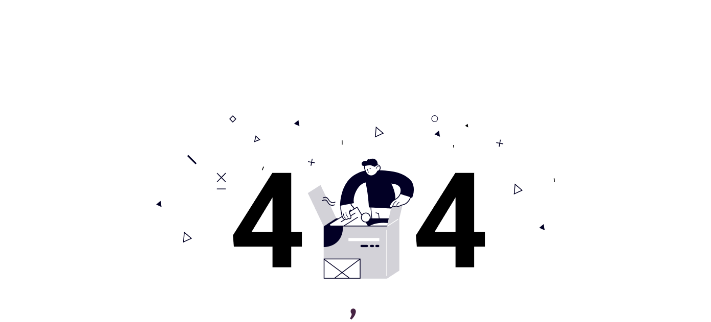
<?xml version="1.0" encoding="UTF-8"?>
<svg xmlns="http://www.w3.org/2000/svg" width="711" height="322">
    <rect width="100%" height="100%" fill="#FFFFFF"/>
    <image x="156" y="115" width="399" height="164" href="img_01.png"/>
    <text x="349" y="337" font-family="Bitter" font-size="36" font-weight="700" fill="#462343">’</text>
</svg>
